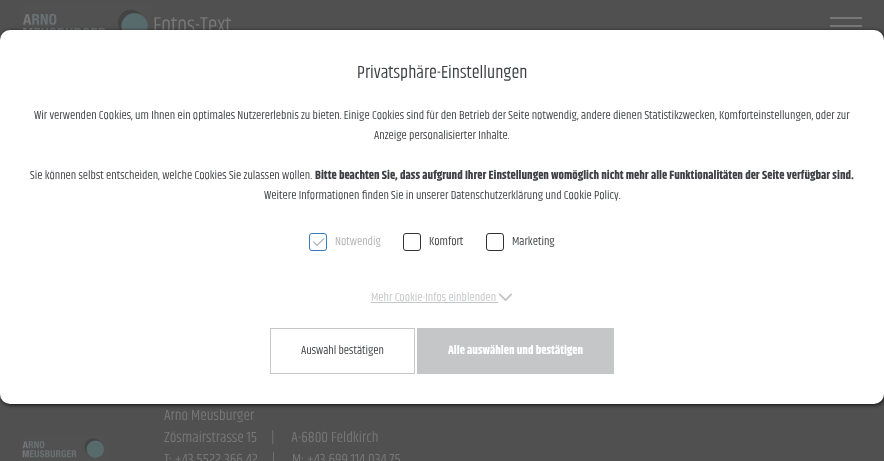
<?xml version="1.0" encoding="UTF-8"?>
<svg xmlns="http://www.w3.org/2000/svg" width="884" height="461">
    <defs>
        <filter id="blur1" x="-50%" y="-200%" width="200%" height="500%"><feGaussianBlur stdDeviation="2"/></filter>
    </defs>
    <rect width="100%" height="100%" fill="#505051"/>
    <image x="20" y="6" width="133" height="24" href="img_01.png"/>
    <text x="153" y="32" font-family="Khand" font-size="22" fill="#777777">Fotos-Text</text>
    <rect x="830" y="17" width="32" height="2" fill="#777777"/>
    <rect x="830" y="25" width="32" height="2" fill="#777777"/>
    <image x="21" y="436" width="86" height="25" href="img_02.png"/>
    <text font-family="Khand" font-size="15" fill="#777777" xml:space="preserve"><tspan x="164" y="420">Arno Meusburger</tspan><tspan x="164" y="442">Zösmairstrasse 15     |      A-6800 Feldkirch</tspan><tspan x="164" y="464">T: +43 5522 366 42     |      M: +43 699 114 034 75</tspan></text>
    <rect x="1" y="31" width="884" height="374" rx="10" fill="#000000" fill-opacity="0.8" filter="url(#blur1)"/>
    <rect x="0" y="30" width="884" height="374" rx="10" fill="#FFFFFF"/>
    <text x="357" y="78" font-family="Khand" font-size="18" fill="#3E4044">Privatsphäre-Einstellungen</text>
    <text x="34" y="119" font-family="Khand" font-size="12" fill="#3E4044">Wir verwenden Cookies, um Ihnen ein optimales Nutzererlebnis zu bieten. Einige Cookies sind für den Betrieb der Seite notwendig, andere dienen Statistikzwecken, Komforteinstellungen, oder zur</text>
    <text x="374" y="139" font-family="Khand" font-size="12" fill="#3E4044">Anzeige personalisierter Inhalte.</text>
    <text x="30" y="179" font-family="Khand" font-size="12" fill="#3E4044">Sie können selbst entscheiden, welche Cookies Sie zulassen wollen.</text>
    <text x="315" y="179" font-family="Khand" font-size="12" font-weight="700" fill="#3E4044">Bitte beachten Sie, dass aufgrund Ihrer Einstellungen womöglich nicht mehr alle Funktionalitäten der Seite verfügbar sind.</text>
    <text x="264" y="199" font-family="Khand" font-size="12" fill="#3E4044">Weitere Informationen finden Sie in unserer Datenschutzerklärung und Cookie Policy.</text>
    <rect x="309.5" y="233.5" width="17" height="17" rx="2.5" fill="none" stroke="#337AB7"/>
    <image x="313" y="238" width="12" height="8" href="img_03.png"/>
    <text x="335" y="245" font-family="Khand" font-size="12" fill="#B3B3B3">Notwendig</text>
    <rect x="403.5" y="233.5" width="17" height="17" rx="2.5" fill="none" stroke="#333333"/>
    <text x="429" y="245" font-family="Khand" font-size="12" fill="#3E4044">Komfort</text>
    <rect x="486.5" y="233.5" width="17" height="17" rx="2.5" fill="none" stroke="#333333"/>
    <text x="512" y="245" font-family="Khand" font-size="12" fill="#3E4044">Marketing</text>
    <text x="371" y="301" font-family="Khand" font-size="12" fill="#C5C6C8">Mehr Cookie-Infos einblenden</text>
    <rect x="371" y="302" width="127" height="1" fill="#C5C6C8"/>
    <image x="499" y="293" width="13" height="8" href="img_04.png"/>
    <rect x="270.5" y="328.5" width="144" height="45" fill="none" stroke="#C5C6C8"/>
    <text x="301" y="354" font-family="Khand" font-size="12" fill="#3E4044">Auswahl bestätigen</text>
    <rect x="417" y="328" width="197" height="46" fill="#C5C6C8"/>
    <text x="448" y="354" font-family="Khand" font-size="12" font-weight="700" fill="#FFFFFF">Alle auswählen und bestätigen</text>
</svg>
